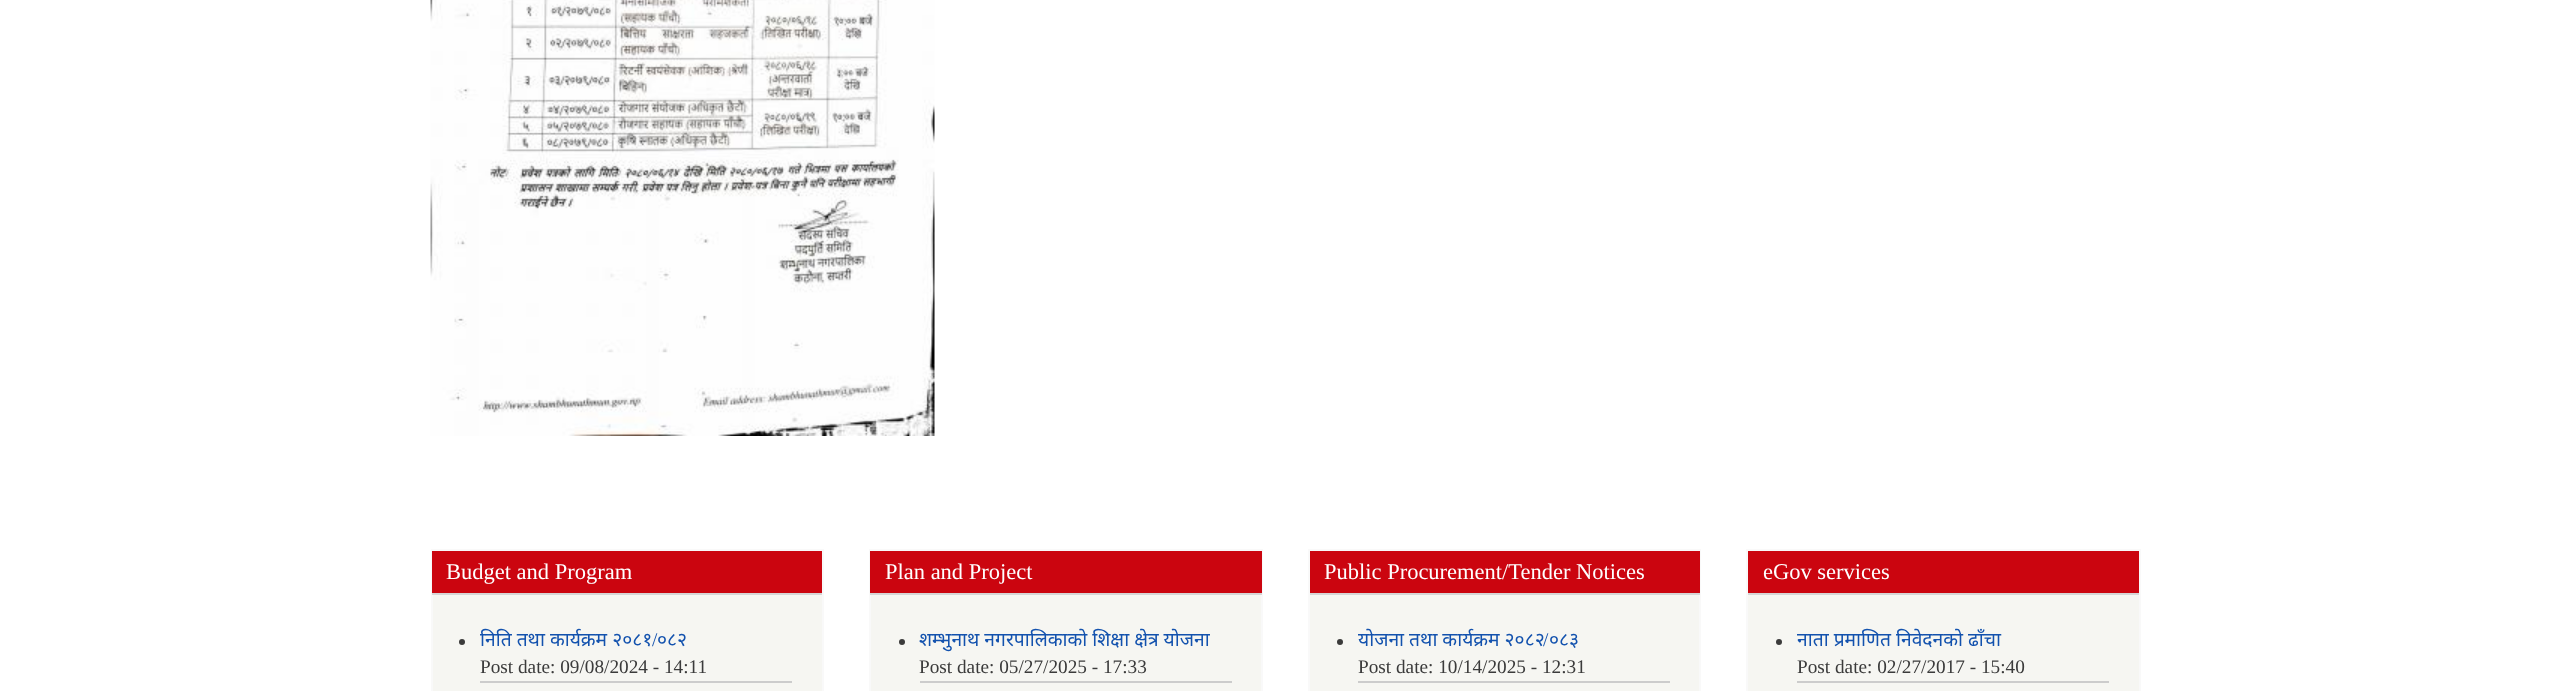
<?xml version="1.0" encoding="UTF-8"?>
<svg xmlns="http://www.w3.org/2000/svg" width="2569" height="691">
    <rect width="100%" height="100%" fill="#FFFFFF"/>
    <image x="430" y="0" width="505" height="436" href="img_01.png"/>
    <rect x="433" y="595" width="389" height="96" fill="#F6F6F2"/>
    <rect x="432" y="550" width="391" height="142" fill="none" stroke="#F9F9F9" stroke-width="2"/>
    <rect x="432" y="551" width="390" height="42" fill="#CB050F"/>
    <rect x="432" y="593" width="390" height="2" fill="#D6D6D6"/>
    <text x="446" y="579" font-family="Liberation Serif" font-size="22.5" fill="#FFFFFF">Budget and Program</text>
    <rect x="480" y="681" width="312" height="2" fill="#CCCCCC"/>
    <circle cx="462" cy="642" r="3" fill="#3B3B3B"/>
    <text x="480" y="646" font-family="Noto Sans" font-size="19.25" fill="#1352AE">निति तथा कार्यक्रम २०८१</text>
    <text x="652" y="646" font-family="Liberation Serif" font-size="19.25" fill="#1352AE">/</text>
    <text x="657" y="646" font-family="Noto Sans" font-size="19.25" fill="#1352AE">०८२</text>
    <text x="480" y="673" font-family="Liberation Serif" font-size="19.25" fill="#3B3B3B">Post date: 09/08/2024 - 14:11</text>
    <rect x="871" y="595" width="390" height="96" fill="#F6F6F2"/>
    <rect x="870" y="550" width="392" height="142" fill="none" stroke="#F9F9F9" stroke-width="2"/>
    <rect x="870" y="551" width="392" height="42" fill="#CB050F"/>
    <rect x="870" y="593" width="392" height="2" fill="#D6D6D6"/>
    <text x="885" y="579" font-family="Liberation Serif" font-size="22.5" fill="#FFFFFF">Plan and Project</text>
    <rect x="920" y="681" width="312" height="2" fill="#CCCCCC"/>
    <circle cx="902" cy="642" r="3" fill="#3B3B3B"/>
    <text x="919" y="646" font-family="Noto Sans" font-size="19.25" fill="#1352AE">शम्भुनाथ नगरपालिकाको शिक्षा क्षेत्र योजना</text>
    <text x="919" y="673" font-family="Liberation Serif" font-size="19.25" fill="#3B3B3B">Post date: 05/27/2025 - 17:33</text>
    <rect x="1310" y="595" width="389" height="96" fill="#F6F6F2"/>
    <rect x="1309" y="550" width="391" height="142" fill="none" stroke="#F9F9F9" stroke-width="2"/>
    <rect x="1310" y="551" width="390" height="42" fill="#CB050F"/>
    <rect x="1310" y="593" width="390" height="2" fill="#D6D6D6"/>
    <text x="1324" y="579" font-family="Liberation Serif" font-size="22.5" fill="#FFFFFF">Public Procurement/Tender Notices</text>
    <rect x="1358" y="681" width="312" height="2" fill="#CCCCCC"/>
    <circle cx="1340" cy="642" r="3" fill="#3B3B3B"/>
    <text x="1358" y="646" font-family="Noto Sans" font-size="19.25" fill="#1352AE">योजना तथा कार्यक्रम २०८२</text>
    <text x="1543" y="646" font-family="Liberation Serif" font-size="19.25" fill="#1352AE">/</text>
    <text x="1549" y="646" font-family="Noto Sans" font-size="19.25" fill="#1352AE">०८३</text>
    <text x="1358" y="673" font-family="Liberation Serif" font-size="19.25" fill="#3B3B3B">Post date: 10/14/2025 - 12:31</text>
    <rect x="1748" y="595" width="391" height="96" fill="#F6F6F2"/>
    <rect x="1747" y="550" width="393" height="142" fill="none" stroke="#F9F9F9" stroke-width="2"/>
    <rect x="1748" y="551" width="391" height="42" fill="#CB050F"/>
    <rect x="1748" y="593" width="391" height="2" fill="#D6D6D6"/>
    <text x="1763" y="579" font-family="Liberation Serif" font-size="22.5" fill="#FFFFFF">eGov services</text>
    <rect x="1797" y="681" width="312" height="2" fill="#CCCCCC"/>
    <circle cx="1779" cy="642" r="3" fill="#3B3B3B"/>
    <text x="1797" y="646" font-family="Noto Sans" font-size="19.25" fill="#1352AE">नाता प्रमाणित निवेदनको ढाँचा</text>
    <text x="1797" y="673" font-family="Liberation Serif" font-size="19.25" fill="#3B3B3B">Post date: 02/27/2017 - 15:40</text>
</svg>
